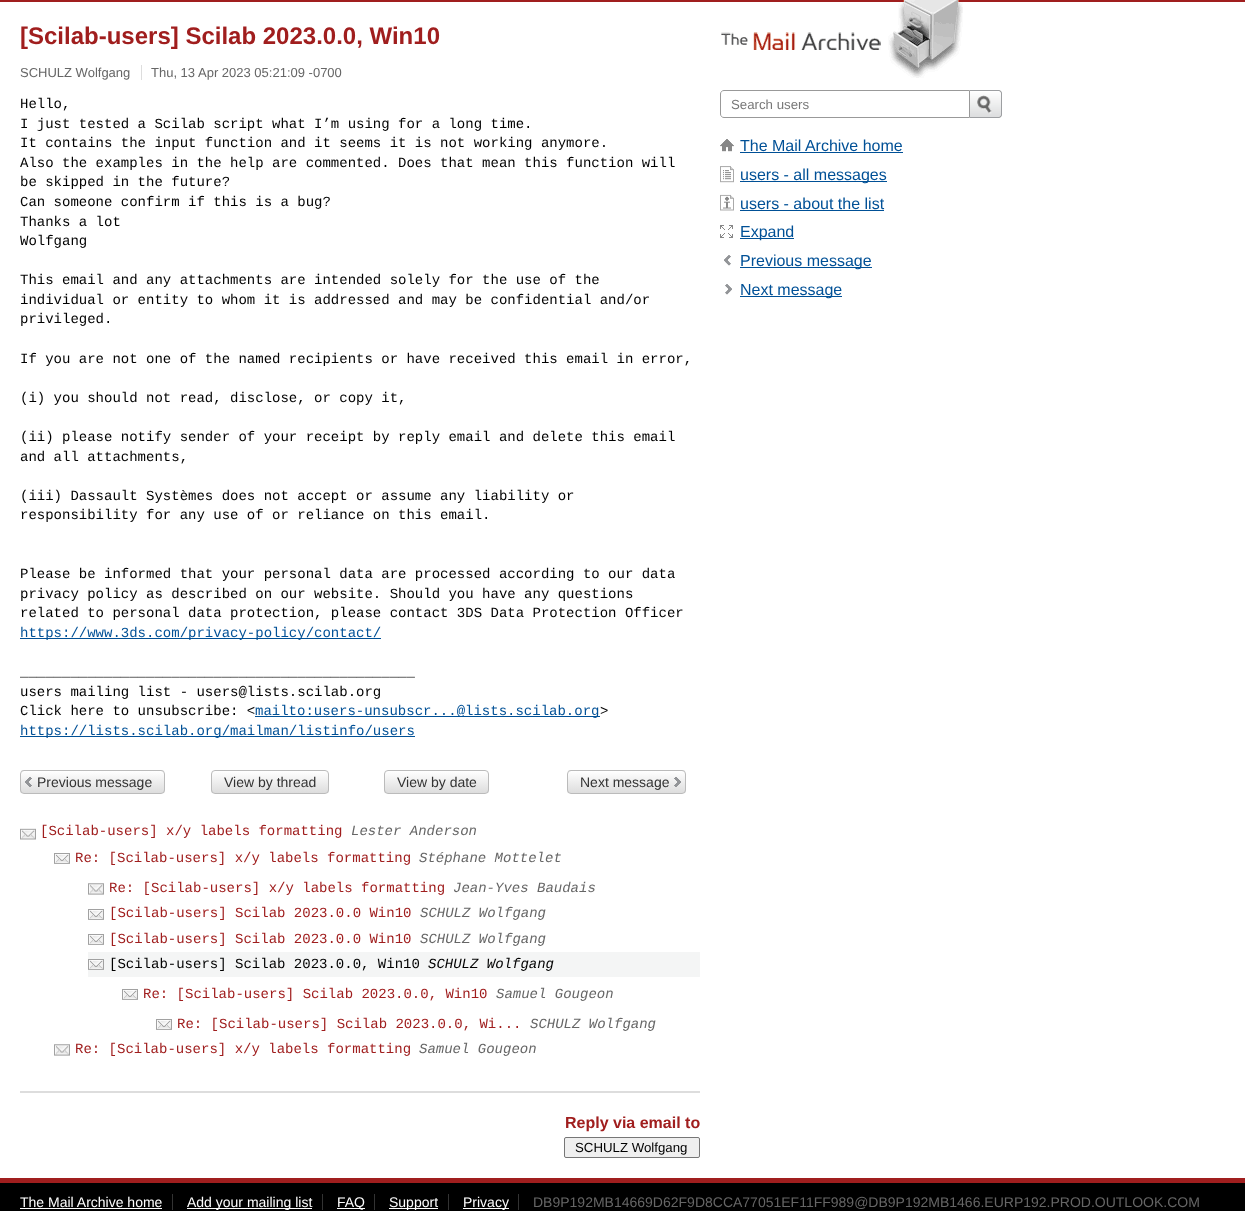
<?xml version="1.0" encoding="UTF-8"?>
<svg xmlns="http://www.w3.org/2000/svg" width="1245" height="1211">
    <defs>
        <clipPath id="clip1"><rect x="211" y="770" width="118" height="24" rx="4"/></clipPath>
        <linearGradient id="g1" gradientUnits="userSpaceOnUse" x1="270" y1="771" x2="270" y2="793"><stop offset="0" stop-color="#FFFFFF"/><stop offset="1" stop-color="#DDDDDD"/></linearGradient>
        <clipPath id="clip2"><rect x="384" y="770" width="105" height="24" rx="4"/></clipPath>
        <linearGradient id="g2" gradientUnits="userSpaceOnUse" x1="437" y1="771" x2="437" y2="793"><stop offset="0" stop-color="#FFFFFF"/><stop offset="1" stop-color="#DDDDDD"/></linearGradient>
    </defs>
    <rect width="100%" height="100%" fill="#FFFFFF"/>
    <rect x="0" y="0" width="1245" height="2" fill="#A01E1E"/>
    <text x="20" y="44" font-family="Liberation Sans" font-size="24" font-weight="700" fill="#A01E1E">[Scilab-users] Scilab 2023.0.0, Win10</text>
    <text x="20" y="77" font-family="Liberation Sans" font-size="13" fill="#666666">SCHULZ Wolfgang</text>
    <rect x="141" y="65" width="1" height="15" fill="#DDDDDD"/>
    <text x="151" y="77" font-family="Liberation Sans" font-size="13" fill="#666666">Thu, 13 Apr 2023 05:21:09 -0700</text>
    <text font-family="Liberation Mono" font-size="14" fill="#000000">
        <tspan x="20" y="108">Hello,</tspan>
        <tspan x="20" y="128">I just tested a Scilab script what I’m using for a long time.</tspan>
        <tspan x="20" y="147">It contains the input function and it seems it is not working anymore.</tspan>
        <tspan x="20" y="167">Also the examples in the help are commented. Does that mean this function will</tspan>
        <tspan x="20" y="186">be skipped in the future?</tspan>
        <tspan x="20" y="206">Can someone confirm if this is a bug?</tspan>
        <tspan x="20" y="226">Thanks a lot</tspan>
        <tspan x="20" y="245">Wolfgang</tspan>
    </text>
    <text font-family="Liberation Mono" font-size="14" fill="#000000">
        <tspan x="20" y="284">This email and any attachments are intended solely for the use of the</tspan>
        <tspan x="20" y="304">individual or entity to whom it is addressed and may be confidential and/or</tspan>
        <tspan x="20" y="323">privileged.</tspan>
    </text>
    <text x="20" y="363" font-family="Liberation Mono" font-size="14" fill="#000000">If you are not one of the named recipients or have received this email in error,</text>
    <text x="20" y="402" font-family="Liberation Mono" font-size="14" fill="#000000">(i) you should not read, disclose, or copy it,</text>
    <text font-family="Liberation Mono" font-size="14" fill="#000000">
        <tspan x="20" y="441">(ii) please notify sender of your receipt by reply email and delete this email</tspan>
        <tspan x="20" y="461">and all attachments,</tspan>
    </text>
    <text font-family="Liberation Mono" font-size="14" fill="#000000">
        <tspan x="20" y="500">(iii) Dassault Systèmes does not accept or assume any liability or</tspan>
        <tspan x="20" y="519">responsibility for any use of or reliance on this email.</tspan>
    </text>
    <text font-family="Liberation Mono" font-size="14" fill="#000000">
        <tspan x="20" y="578">Please be informed that your personal data are processed according to our data</tspan>
        <tspan x="20" y="598">privacy policy as described on our website. Should you have any questions</tspan>
        <tspan x="20" y="617">related to personal data protection, please contact 3DS Data Protection Officer</tspan>
    </text>
    <rect x="20" y="638" width="361" height="1" fill="#005096"/>
    <text x="20" y="637" font-family="Liberation Mono" font-size="14" fill="#005096">https://www.3ds.com/privacy-policy/contact/</text>
    <text font-family="Liberation Mono" font-size="14" fill="#000000">
        <tspan x="20" y="676">_______________________________________________</tspan>
        <tspan x="20" y="696">users mailing list - users@lists.scilab.org</tspan>
        <tspan x="20" y="715">Click here to unsubscribe: &lt;</tspan>
    </text>
    <rect x="255" y="716" width="345" height="1" fill="#005096"/>
    <text x="255" y="715" font-family="Liberation Mono" font-size="14" fill="#005096">mailto:users-unsubscr...@lists.scilab.org</text>
    <text x="600" y="715" font-family="Liberation Mono" font-size="14" fill="#000000">&gt;</text>
    <rect x="20" y="736" width="395" height="1" fill="#005096"/>
    <text x="20" y="735" font-family="Liberation Mono" font-size="14" fill="#005096">https://lists.scilab.org/mailman/listinfo/users</text>
    <image x="20" y="770" width="145" height="24" href="img_01.png"/>
    <rect x="20.5" y="770.5" width="144" height="23" rx="3.5" fill="none" stroke="#BBBBBB"/>
    <text x="37" y="787" font-family="Liberation Sans" font-size="14" fill="#333333">Previous message</text>
    <g clip-path="url(#clip1)">
        <rect x="211" y="771" width="118" height="22" fill="url(#g1)"/>
    </g>
    <rect x="211.5" y="770.5" width="117" height="23" rx="3.5" fill="none" stroke="#BBBBBB"/>
    <text x="224" y="787" font-family="Liberation Sans" font-size="14" fill="#333333">View by thread</text>
    <g clip-path="url(#clip2)">
        <rect x="384" y="771" width="105" height="22" fill="url(#g2)"/>
    </g>
    <rect x="384.5" y="770.5" width="104" height="23" rx="3.5" fill="none" stroke="#BBBBBB"/>
    <text x="397" y="787" font-family="Liberation Sans" font-size="14" fill="#333333">View by date</text>
    <image x="567" y="770" width="119" height="24" href="img_02.png"/>
    <rect x="567.5" y="770.5" width="118" height="23" rx="3.5" fill="none" stroke="#BBBBBB"/>
    <text x="580" y="787" font-family="Liberation Sans" font-size="14" fill="#333333">Next message</text>
    <image x="20" y="828" width="16" height="12" href="img_03.png"/>
    <text x="40" y="835" font-family="Liberation Mono" font-size="14" fill="#A01E1E">[Scilab-users] x/y labels formatting</text>
    <text x="351" y="835" font-family="Liberation Mono" font-size="14" font-style="italic" fill="#666666">Lester Anderson</text>
    <image x="54" y="853" width="16" height="11" href="img_04.png"/>
    <text x="75" y="862" font-family="Liberation Mono" font-size="14" fill="#A01E1E">Re: [Scilab-users] x/y labels formatting</text>
    <text x="419" y="862" font-family="Liberation Mono" font-size="14" font-style="italic" fill="#666666">Stéphane Mottelet</text>
    <image x="88" y="883" width="16" height="12" href="img_05.png"/>
    <text x="109" y="892" font-family="Liberation Mono" font-size="14" fill="#A01E1E">Re: [Scilab-users] x/y labels formatting</text>
    <text x="453" y="892" font-family="Liberation Mono" font-size="14" font-style="italic" fill="#666666">Jean-Yves Baudais</text>
    <image x="88" y="909" width="16" height="11" href="img_04.png"/>
    <text x="109" y="917" font-family="Liberation Mono" font-size="14" fill="#A01E1E">[Scilab-users] Scilab 2023.0.0 Win10</text>
    <text x="420" y="917" font-family="Liberation Mono" font-size="14" font-style="italic" fill="#666666">SCHULZ Wolfgang</text>
    <image x="88" y="934" width="16" height="11" href="img_04.png"/>
    <text x="109" y="943" font-family="Liberation Mono" font-size="14" fill="#A01E1E">[Scilab-users] Scilab 2023.0.0 Win10</text>
    <text x="420" y="943" font-family="Liberation Mono" font-size="14" font-style="italic" fill="#666666">SCHULZ Wolfgang</text>
    <rect x="88" y="952" width="612" height="25" fill="#F4F5F5"/>
    <image x="88" y="959" width="16" height="11" href="img_06.png"/>
    <text x="109" y="968" font-family="Liberation Mono" font-size="14" fill="#000000">[Scilab-users] Scilab 2023.0.0, Win10</text>
    <text x="428" y="968" font-family="Liberation Mono" font-size="14" font-style="italic" fill="#000000">SCHULZ Wolfgang</text>
    <image x="122" y="989" width="16" height="11" href="img_04.png"/>
    <text x="143" y="998" font-family="Liberation Mono" font-size="14" fill="#A01E1E">Re: [Scilab-users] Scilab 2023.0.0, Win10</text>
    <text x="496" y="998" font-family="Liberation Mono" font-size="14" font-style="italic" fill="#666666">Samuel Gougeon</text>
    <image x="156" y="1019" width="16" height="11" href="img_04.png"/>
    <text x="177" y="1028" font-family="Liberation Mono" font-size="14" fill="#A01E1E">Re: [Scilab-users] Scilab 2023.0.0, Wi...</text>
    <text x="530" y="1028" font-family="Liberation Mono" font-size="14" font-style="italic" fill="#666666">SCHULZ Wolfgang</text>
    <image x="54" y="1044" width="16" height="12" href="img_05.png"/>
    <text x="75" y="1053" font-family="Liberation Mono" font-size="14" fill="#A01E1E">Re: [Scilab-users] x/y labels formatting</text>
    <text x="419" y="1053" font-family="Liberation Mono" font-size="14" font-style="italic" fill="#666666">Samuel Gougeon</text>
    <rect x="20" y="1091" width="680" height="2" fill="#DDDDDD"/>
    <text x="565" y="1128" font-family="Liberation Sans" font-size="16" font-weight="700" fill="#A01E1E">Reply via email to</text>
    <rect x="564.5" y="1137.5" width="135" height="20" rx="1.5" fill="#EFEFEF" stroke="#767676"/>
    <text x="575" y="1152" font-family="Liberation Sans" font-size="13.25" fill="#000000">SCHULZ Wolfgang</text>
    <image x="721" y="0" width="242" height="78" href="img_07.png"/>
    <path d="M 724 90.5 H 969.5 V 117.5 H 724 C 722 117.5 720.5 116 720.5 114 V 94 C 720.5 92 722 90.5 724 90.5 Z" fill="none" stroke="#999999"/>
    <text x="731" y="109" font-family="Liberation Sans" font-size="13.25" fill="#777777">Search users</text>
    <image x="970" y="90" width="32" height="28" href="img_08.png"/>
    <image x="720" y="139" width="14" height="13" href="img_09.png"/>
    <text x="740" y="151" font-family="Liberation Sans" font-size="16" fill="#005096">The Mail Archive home</text>
    <rect x="740" y="152" width="163" height="1" fill="#005096"/>
    <image x="720" y="166" width="14" height="17" href="img_10.png"/>
    <rect x="740" y="181" width="147" height="1" fill="#005096"/>
    <text x="740" y="180" font-family="Liberation Sans" font-size="16" fill="#005096">users - all messages</text>
    <image x="720" y="194" width="14" height="17" href="img_11.png"/>
    <text x="740" y="209" font-family="Liberation Sans" font-size="16" fill="#005096">users - about the list</text>
    <rect x="740" y="210" width="144" height="1" fill="#005096"/>
    <image x="720" y="225" width="13" height="13" href="img_12.png"/>
    <rect x="740" y="238" width="54" height="1" fill="#005096"/>
    <text x="740" y="237" font-family="Liberation Sans" font-size="16" fill="#005096">Expand</text>
    <image x="724" y="255" width="7" height="11" href="img_13.png"/>
    <rect x="740" y="267" width="132" height="1" fill="#005096"/>
    <text x="740" y="266" font-family="Liberation Sans" font-size="16" fill="#005096">Previous message</text>
    <image x="725" y="284" width="7" height="11" href="img_14.png"/>
    <rect x="740" y="296" width="102" height="1" fill="#005096"/>
    <text x="740" y="295" font-family="Liberation Sans" font-size="16" fill="#005096">Next message</text>
    <rect x="0" y="1183" width="1245" height="28" fill="#000000"/>
    <rect x="0" y="1178" width="1245" height="5" fill="#A01E1E"/>
    <text x="20" y="1207" font-family="Liberation Sans" font-size="14" fill="#FFFFFF">The Mail Archive home</text>
    <rect x="172" y="1194" width="1" height="16" fill="#333333"/>
    <rect x="20" y="1208" width="142" height="1" fill="#FFFFFF"/>
    <rect x="187" y="1208" width="125" height="1" fill="#FFFFFF"/>
    <text x="187" y="1207" font-family="Liberation Sans" font-size="14" fill="#FFFFFF">Add your mailing list</text>
    <rect x="322" y="1194" width="1" height="16" fill="#333333"/>
    <rect x="337" y="1208" width="28" height="1" fill="#FFFFFF"/>
    <text x="337" y="1207" font-family="Liberation Sans" font-size="14" fill="#FFFFFF">FAQ</text>
    <rect x="374" y="1194" width="1" height="16" fill="#333333"/>
    <rect x="389" y="1208" width="49" height="1" fill="#FFFFFF"/>
    <text x="389" y="1207" font-family="Liberation Sans" font-size="14" fill="#FFFFFF">Support</text>
    <rect x="448" y="1194" width="1" height="16" fill="#333333"/>
    <rect x="463" y="1208" width="46" height="1" fill="#FFFFFF"/>
    <text x="463" y="1207" font-family="Liberation Sans" font-size="14" fill="#FFFFFF">Privacy</text>
    <rect x="518" y="1194" width="1" height="16" fill="#333333"/>
    <text x="533" y="1207" font-family="Liberation Sans" font-size="14" fill="#666666">DB9P192MB14669D62F9D8CCA77051EF11FF989@DB9P192MB1466.EURP192.PROD.OUTLOOK.COM</text>
</svg>
